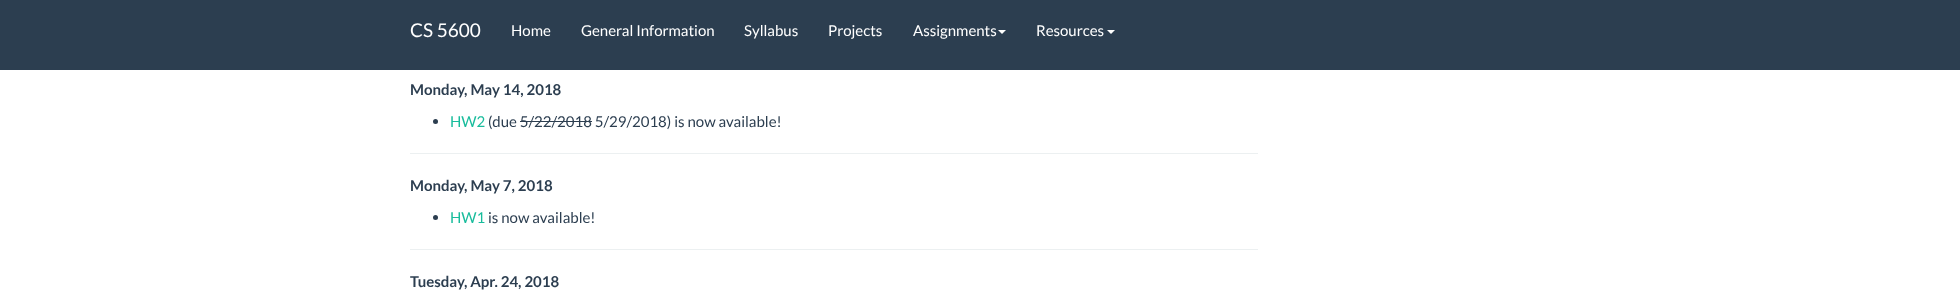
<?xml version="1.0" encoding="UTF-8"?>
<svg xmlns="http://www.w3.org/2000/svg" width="1960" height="303">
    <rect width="100%" height="100%" fill="#FFFFFF"/>
    <rect x="0" y="0" width="1960" height="70" fill="#2C3E50"/>
    <text x="410" y="37" font-family="Lato" font-size="19" fill="#FFFFFF">CS 5600</text>
    <text x="511" y="36" font-family="Lato" font-size="15" fill="#FFFFFF">Home</text>
    <text x="581" y="36" font-family="Lato" font-size="15" fill="#FFFFFF">General Information</text>
    <text x="744" y="36" font-family="Lato" font-size="15" fill="#FFFFFF">Syllabus</text>
    <text x="828" y="36" font-family="Lato" font-size="15" fill="#FFFFFF">Projects</text>
    <text x="913" y="36" font-family="Lato" font-size="15" fill="#FFFFFF">Assignments</text>
    <path d="M 998 30 H 1006 L 1002 34 Z" fill="#FFFFFF"/>
    <text x="1036" y="36" font-family="Lato" font-size="15" fill="#FFFFFF">Resources</text>
    <path d="M 1107 30 H 1115 L 1111 34 Z" fill="#FFFFFF"/>
    <text x="410" y="95" font-family="Lato" font-size="15" font-weight="700" fill="#2C3E50">Monday, May 14, 2018</text>
    <circle cx="435.5" cy="121.5" r="2.5" fill="#2C3E50"/>
    <text x="450" y="127" font-family="Lato" font-size="15" fill="#18BC9C">HW2</text>
    <text x="488" y="127" font-family="Lato" font-size="15" fill="#2C3E50">(due 5/22/2018 5/29/2018) is now available!</text>
    <rect x="520" y="121" width="72" height="1" fill="#2C3E50"/>
    <rect x="410" y="153" width="848" height="1" fill="#ECF0F1"/>
    <text x="410" y="191" font-family="Lato" font-size="15" font-weight="700" fill="#2C3E50">Monday, May 7, 2018</text>
    <circle cx="435.5" cy="217.5" r="2.5" fill="#2C3E50"/>
    <text x="450" y="223" font-family="Lato" font-size="15" fill="#18BC9C">HW1</text>
    <text x="488" y="223" font-family="Lato" font-size="15" fill="#2C3E50">is now available!</text>
    <rect x="410" y="249" width="848" height="1" fill="#ECF0F1"/>
    <text x="410" y="287" font-family="Lato" font-size="15" font-weight="700" fill="#2C3E50">Tuesday, Apr. 24, 2018</text>
</svg>
